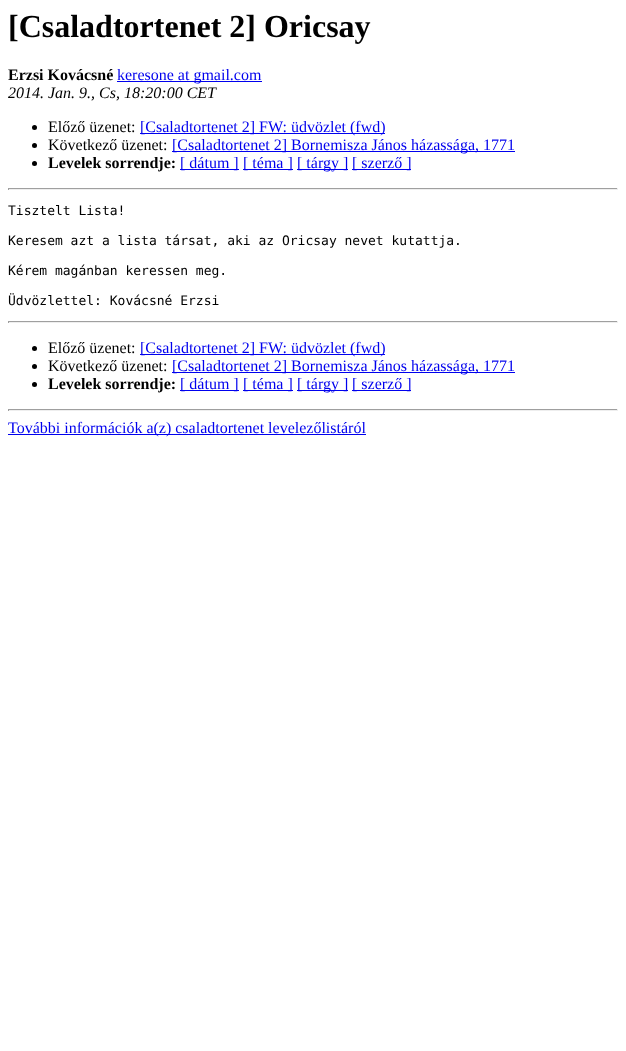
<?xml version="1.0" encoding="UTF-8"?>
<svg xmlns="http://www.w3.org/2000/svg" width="626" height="1051">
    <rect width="100%" height="100%" fill="#FFFFFF"/>
    <text x="8" y="37" font-family="Liberation Serif" font-size="32" font-weight="700" fill="#000000">[Csaladtortenet 2] Oricsay</text>
    <text x="8" y="80" font-family="Liberation Serif" font-size="16" font-weight="700" fill="#000000">Erzsi Kovácsné</text>
    <rect x="117" y="81" width="145" height="1" fill="#0000EE"/>
    <text x="117" y="80" font-family="Liberation Serif" font-size="16" fill="#0000EE">keresone at gmail.com</text>
    <text x="8" y="98" font-family="Liberation Serif" font-size="16" font-style="italic" fill="#000000">2014. Jan. 9., Cs, 18:20:00 CET</text>
    <circle cx="34.5" cy="127.5" r="2.5" fill="#000000"/>
    <text x="48" y="132" font-family="Liberation Serif" font-size="16" fill="#000000">Előző üzenet:</text>
    <rect x="140" y="133" width="245" height="1" fill="#0000EE"/>
    <text x="140" y="132" font-family="Liberation Serif" font-size="16" fill="#0000EE">[Csaladtortenet 2] FW: üdvözlet (fwd)</text>
    <circle cx="34.5" cy="145.5" r="2.5" fill="#000000"/>
    <text x="48" y="150" font-family="Liberation Serif" font-size="16" fill="#000000">Következő üzenet:</text>
    <rect x="172" y="151" width="343" height="1" fill="#0000EE"/>
    <text x="172" y="150" font-family="Liberation Serif" font-size="16" fill="#0000EE">[Csaladtortenet 2] Bornemisza János házassága, 1771</text>
    <circle cx="34.5" cy="163.5" r="2.5" fill="#000000"/>
    <text x="48" y="168" font-family="Liberation Serif" font-size="16" font-weight="700" fill="#000000">Levelek sorrendje:</text>
    <rect x="180" y="169" width="59" height="1" fill="#0000EE"/>
    <text x="180" y="168" font-family="Liberation Serif" font-size="16" fill="#0000EE">[ dátum ]</text>
    <rect x="243" y="169" width="50" height="1" fill="#0000EE"/>
    <text x="243" y="168" font-family="Liberation Serif" font-size="16" fill="#0000EE">[ téma ]</text>
    <rect x="297" y="169" width="51" height="1" fill="#0000EE"/>
    <text x="297" y="168" font-family="Liberation Serif" font-size="16" fill="#0000EE">[ tárgy ]</text>
    <rect x="352" y="169" width="59" height="1" fill="#0000EE"/>
    <text x="352" y="168" font-family="Liberation Serif" font-size="16" fill="#0000EE">[ szerző ]</text>
    <rect x="8" y="188" width="610" height="1" fill="#9F9F9F"/>
    <rect x="617" y="188" width="1" height="2" fill="#EEEEEE"/>
    <rect x="8" y="189" width="610" height="1" fill="#EEEEEE"/>
    <rect x="8" y="188" width="1" height="2" fill="#9F9F9F"/>
    <text x="8" y="215" font-family="DejaVu Sans Mono" font-size="13" fill="#000000">Tisztelt Lista!</text>
    <text x="8" y="245" font-family="DejaVu Sans Mono" font-size="13" fill="#000000">Keresem azt a lista társat, aki az Oricsay nevet kutattja.</text>
    <text x="8" y="275" font-family="DejaVu Sans Mono" font-size="13" fill="#000000">Kérem magánban keressen meg.</text>
    <text x="8" y="305" font-family="DejaVu Sans Mono" font-size="13" fill="#000000">Üdvözlettel: Kovácsné Erzsi</text>
    <rect x="8" y="321" width="610" height="1" fill="#9F9F9F"/>
    <rect x="617" y="321" width="1" height="2" fill="#EEEEEE"/>
    <rect x="8" y="322" width="610" height="1" fill="#EEEEEE"/>
    <rect x="8" y="321" width="1" height="2" fill="#9F9F9F"/>
    <circle cx="34.5" cy="348.5" r="2.5" fill="#000000"/>
    <text x="48" y="353" font-family="Liberation Serif" font-size="16" fill="#000000">Előző üzenet:</text>
    <rect x="140" y="354" width="245" height="1" fill="#0000EE"/>
    <text x="140" y="353" font-family="Liberation Serif" font-size="16" fill="#0000EE">[Csaladtortenet 2] FW: üdvözlet (fwd)</text>
    <circle cx="34.5" cy="366.5" r="2.5" fill="#000000"/>
    <text x="48" y="371" font-family="Liberation Serif" font-size="16" fill="#000000">Következő üzenet:</text>
    <rect x="172" y="372" width="343" height="1" fill="#0000EE"/>
    <text x="172" y="371" font-family="Liberation Serif" font-size="16" fill="#0000EE">[Csaladtortenet 2] Bornemisza János házassága, 1771</text>
    <circle cx="34.5" cy="384.5" r="2.5" fill="#000000"/>
    <text x="48" y="389" font-family="Liberation Serif" font-size="16" font-weight="700" fill="#000000">Levelek sorrendje:</text>
    <rect x="180" y="390" width="59" height="1" fill="#0000EE"/>
    <text x="180" y="389" font-family="Liberation Serif" font-size="16" fill="#0000EE">[ dátum ]</text>
    <rect x="243" y="390" width="50" height="1" fill="#0000EE"/>
    <text x="243" y="389" font-family="Liberation Serif" font-size="16" fill="#0000EE">[ téma ]</text>
    <rect x="297" y="390" width="51" height="1" fill="#0000EE"/>
    <text x="297" y="389" font-family="Liberation Serif" font-size="16" fill="#0000EE">[ tárgy ]</text>
    <rect x="352" y="390" width="59" height="1" fill="#0000EE"/>
    <text x="352" y="389" font-family="Liberation Serif" font-size="16" fill="#0000EE">[ szerző ]</text>
    <rect x="8" y="409" width="610" height="1" fill="#9F9F9F"/>
    <rect x="617" y="409" width="1" height="2" fill="#EEEEEE"/>
    <rect x="8" y="410" width="610" height="1" fill="#EEEEEE"/>
    <rect x="8" y="409" width="1" height="2" fill="#9F9F9F"/>
    <rect x="8" y="434" width="358" height="1" fill="#0000EE"/>
    <text x="8" y="433" font-family="Liberation Serif" font-size="16" fill="#0000EE">További információk a(z) csaladtortenet levelezőlistáról</text>
</svg>
